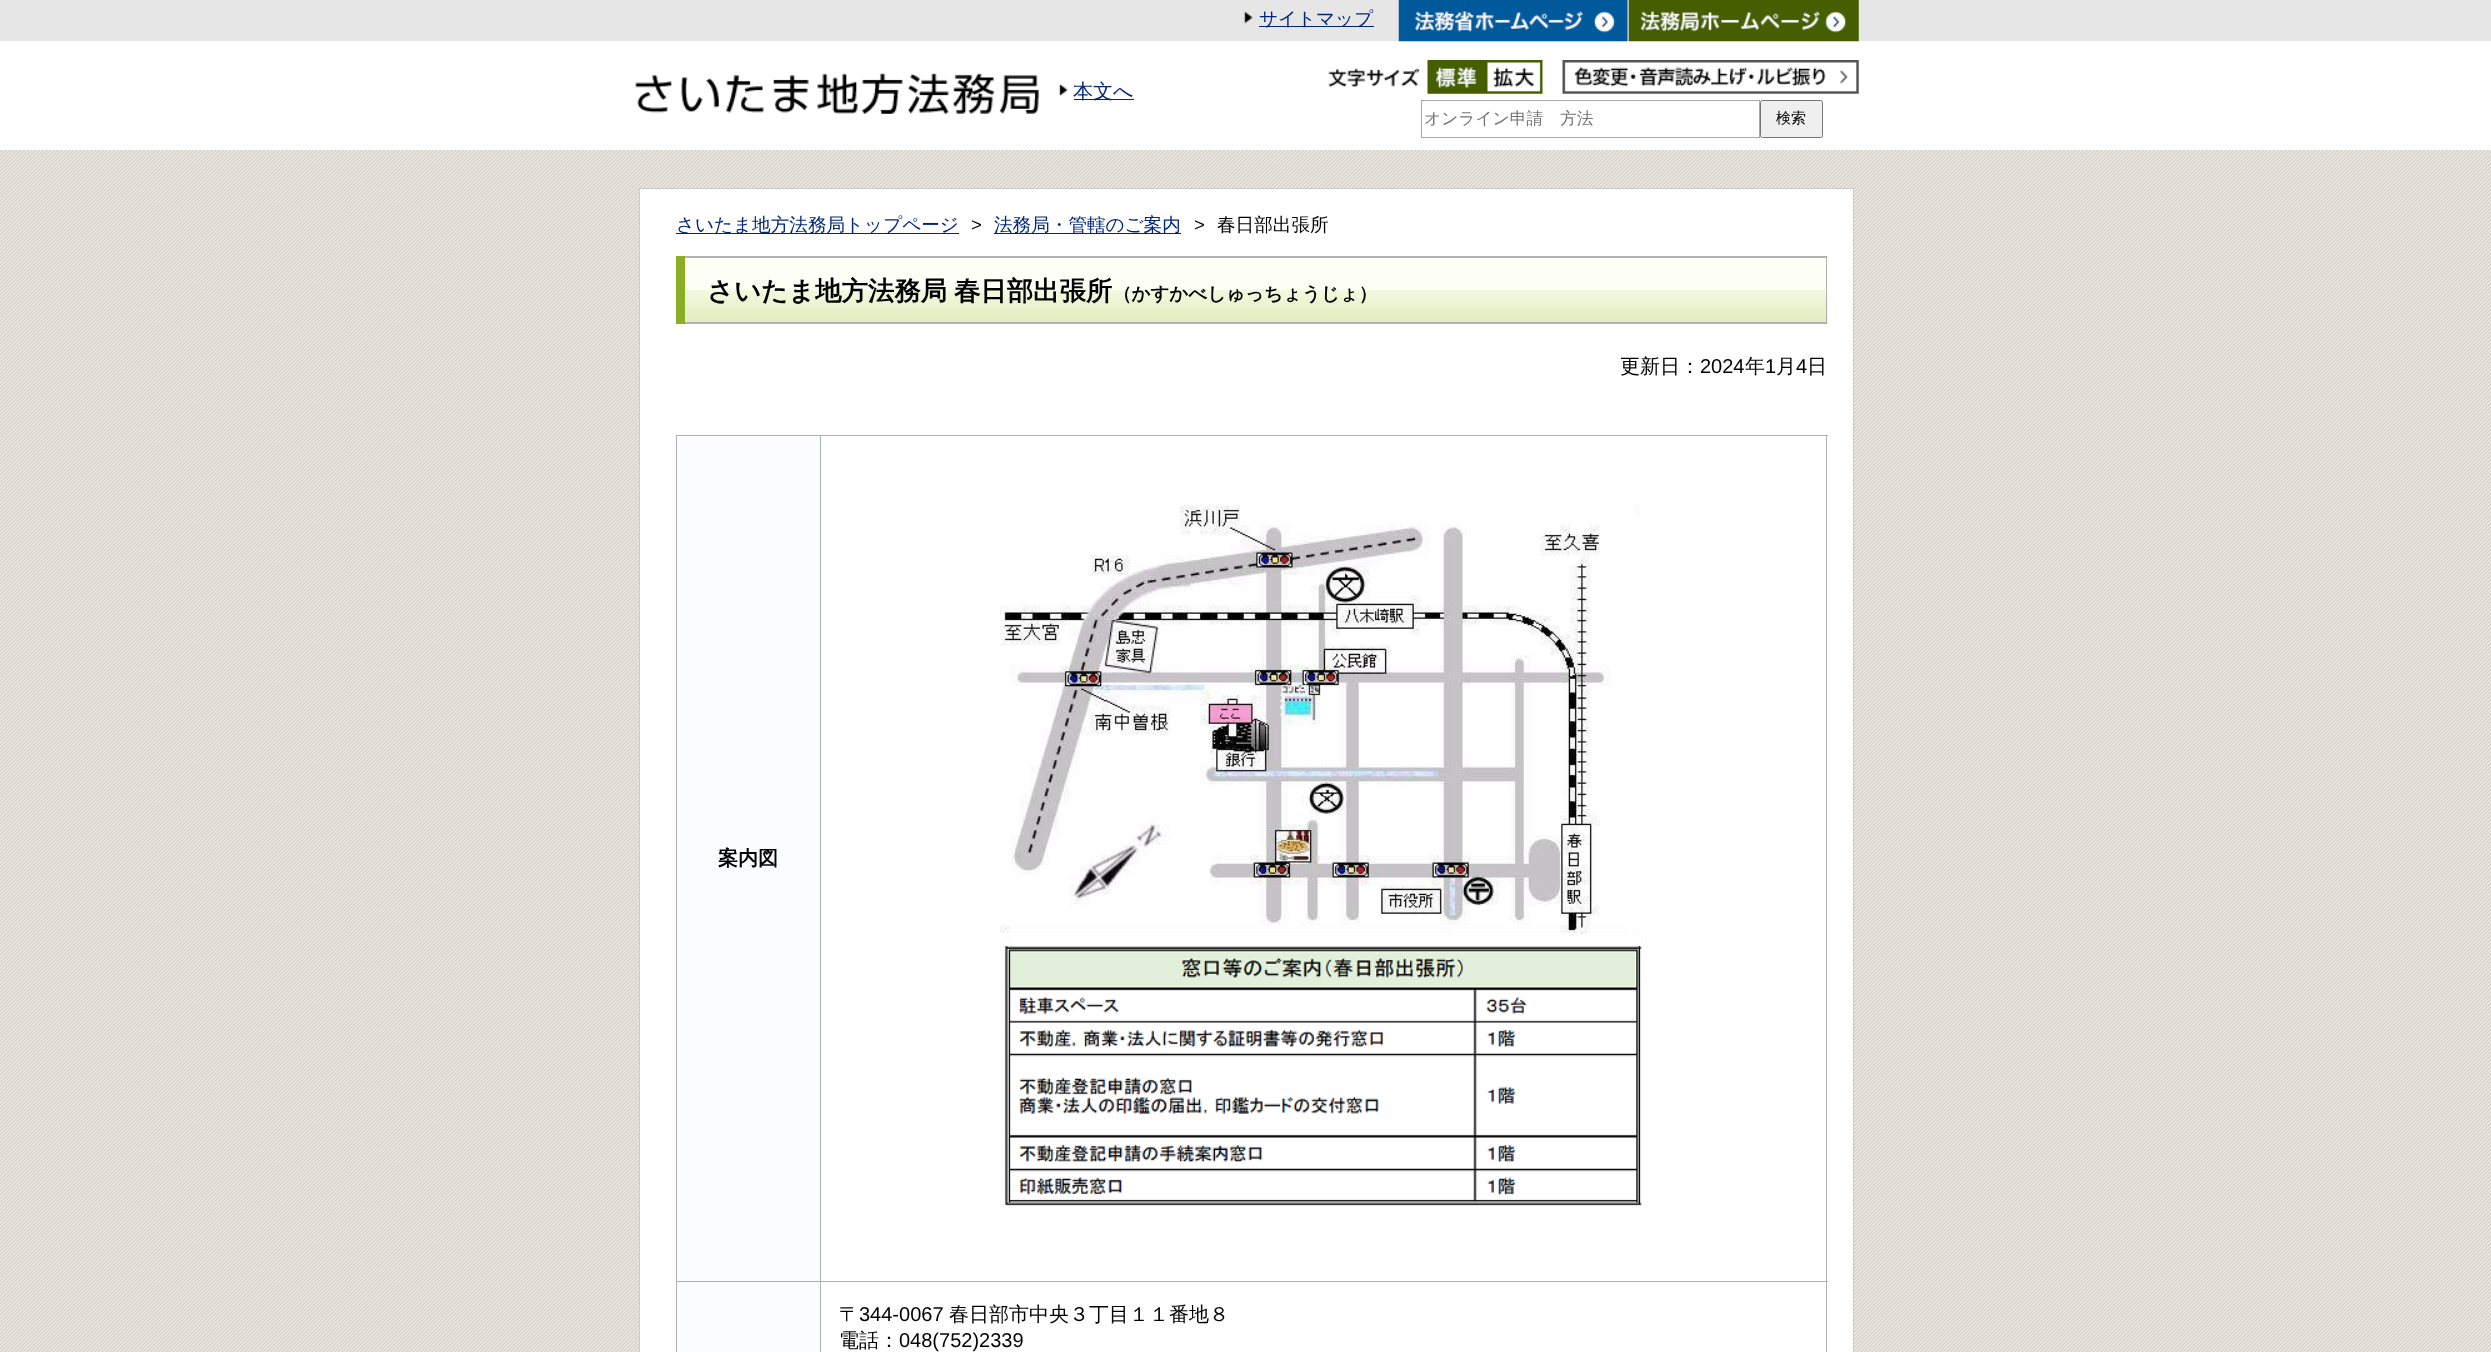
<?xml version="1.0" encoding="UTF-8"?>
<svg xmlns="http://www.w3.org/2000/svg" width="2491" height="1352">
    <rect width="100%" height="100%" fill="#FFFFFF"/>
    <rect x="0" y="0" width="2491" height="41" fill="#E6E6E6"/>
    <image x="1243" y="11" width="10" height="13" href="img_01.png"/>
    <rect x="1259" y="26" width="115" height="1" fill="#00267A"/>
    <text x="1259" y="25" font-family="WenQuanYi Zen Hei" font-size="18.6" font-weight="500" fill="#00267A">サイトマップ</text>
    <image x="1398" y="0" width="230" height="42" href="img_02.png"/>
    <image x="1628" y="0" width="231" height="42" href="img_03.png"/>
    <image x="635" y="73" width="404" height="41" href="img_04.png"/>
    <image x="1058" y="83" width="10" height="13" href="img_05.png"/>
    <rect x="1074" y="99" width="60" height="1" fill="#00267A"/>
    <text x="1073" y="98" font-family="WenQuanYi Zen Hei" font-size="20" font-weight="500" fill="#00267A">本文へ</text>
    <image x="1328" y="68" width="93" height="20" href="img_06.png"/>
    <image x="1427" y="60" width="58" height="34" href="img_07.png"/>
    <image x="1485" y="60" width="58" height="34" href="img_08.png"/>
    <image x="1562" y="60" width="297" height="34" href="img_09.png"/>
    <rect x="1421.5" y="100.5" width="338" height="37" fill="none" stroke="#A9A9A9"/>
    <text x="1424" y="124" font-family="WenQuanYi Zen Hei" font-size="16.75" font-weight="500" fill="#757575">オンライン申請　方法</text>
    <rect x="1760.5" y="100.5" width="62" height="37" rx="2" fill="#EFEFEF" stroke="#767676"/>
    <text x="1776" y="123" font-family="WenQuanYi Zen Hei" font-size="15" font-weight="500" fill="#000000">検索</text>
    <image x="0" y="150" width="2491" height="1202" href="img_10.png"/>
    <rect x="639.5" y="188.5" width="1214" height="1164" fill="#FFFFFF" stroke="#CBCBCB"/>
    <rect x="676" y="233" width="283" height="1" fill="#00267A"/>
    <text x="676" y="231" font-family="WenQuanYi Zen Hei" font-size="18.6" font-weight="500" fill="#00267A">さいたま地方法務局トップページ</text>
    <text x="971" y="231" font-family="Liberation Sans" font-size="18.6" fill="#000000">&gt;</text>
    <rect x="994" y="233" width="187" height="1" fill="#00267A"/>
    <text x="994" y="231" font-family="WenQuanYi Zen Hei" font-size="18.6" font-weight="500" fill="#00267A">法務局・管轄のご案内</text>
    <text x="1194" y="231" font-family="Liberation Sans" font-size="18.6" fill="#000000">&gt;</text>
    <text x="1217" y="231" font-family="WenQuanYi Zen Hei" font-size="18.6" font-weight="500" fill="#000000">春日部出張所</text>
    <image x="685" y="257" width="1143" height="66" href="img_11.png"/>
    <path d="M 676 256 H 1828 L 1826 258 H 685 Z" fill="#B1B1B1"/>
    <rect x="1826" y="256" width="1" height="68" fill="#B1B1B1"/>
    <path d="M 1828 324 H 676 L 685 322 H 1826 Z" fill="#B1B1B1"/>
    <rect x="676" y="256" width="9" height="68" fill="#8AAF27"/>
    <text x="707" y="300" word-spacing="-1" font-family="WenQuanYi Zen Hei" font-size="26.4" font-weight="700" fill="#000000">さいたま地方法務局 春日部出張所</text>
    <text x="1113" y="300" font-family="WenQuanYi Zen Hei" font-size="18.5" font-weight="700" fill="#000000">（かすかべしゅっちょうじょ）</text>
    <text x="1620" y="373" font-family="WenQuanYi Zen Hei" font-size="20" font-weight="500" fill="#000000">更新日：</text>
    <text x="1700" y="373" font-family="Liberation Sans" font-size="20" fill="#000000">2024</text>
    <text x="1745" y="373" font-family="WenQuanYi Zen Hei" font-size="20" font-weight="500" fill="#000000">年</text>
    <text x="1765" y="373" font-family="Liberation Sans" font-size="20" fill="#000000">1</text>
    <text x="1776" y="373" font-family="WenQuanYi Zen Hei" font-size="20" font-weight="500" fill="#000000">月</text>
    <text x="1796" y="373" font-family="Liberation Sans" font-size="20" fill="#000000">4</text>
    <text x="1807" y="373" font-family="WenQuanYi Zen Hei" font-size="20" font-weight="500" fill="#000000">日</text>
    <rect x="677" y="436" width="143" height="916" fill="#FAFDFF"/>
    <rect x="820" y="435" width="1008" height="1" fill="#B1B1B1"/>
    <rect x="820" y="1281" width="1008" height="1" fill="#B1B1B1"/>
    <rect x="820" y="1281" width="1" height="71" fill="#B1B1B1"/>
    <rect x="676" y="1281" width="145" height="1" fill="#B1B1B1"/>
    <rect x="820" y="435" width="1" height="848" fill="#B1B1B1"/>
    <rect x="676" y="435" width="145" height="1" fill="#B1B1B1"/>
    <rect x="676" y="1281" width="1" height="71" fill="#B1B1B1"/>
    <rect x="676" y="435" width="1" height="848" fill="#B1B1B1"/>
    <text x="718" y="865" font-family="WenQuanYi Zen Hei" font-size="20" font-weight="700" fill="#000000">案内図</text>
    <rect x="1826" y="1281" width="1" height="71" fill="#B1B1B1"/>
    <rect x="1826" y="435" width="1" height="848" fill="#B1B1B1"/>
    <image x="1000" y="505" width="647" height="701" href="img_12.png"/>
    <text x="839" y="1321" font-family="WenQuanYi Zen Hei" font-size="20" font-weight="500" fill="#000000">〒</text>
    <text x="859" y="1321" font-family="Liberation Sans" font-size="20" fill="#000000">344-0067</text>
    <text x="949" y="1321" font-family="WenQuanYi Zen Hei" font-size="20" font-weight="500" fill="#000000">春日部市中央３丁目１１番地８</text>
    <text x="839" y="1347" font-family="WenQuanYi Zen Hei" font-size="20" font-weight="500" fill="#000000">電話：</text>
    <text x="899" y="1347" font-family="Liberation Sans" font-size="20" fill="#000000">048(752)2339</text>
</svg>
